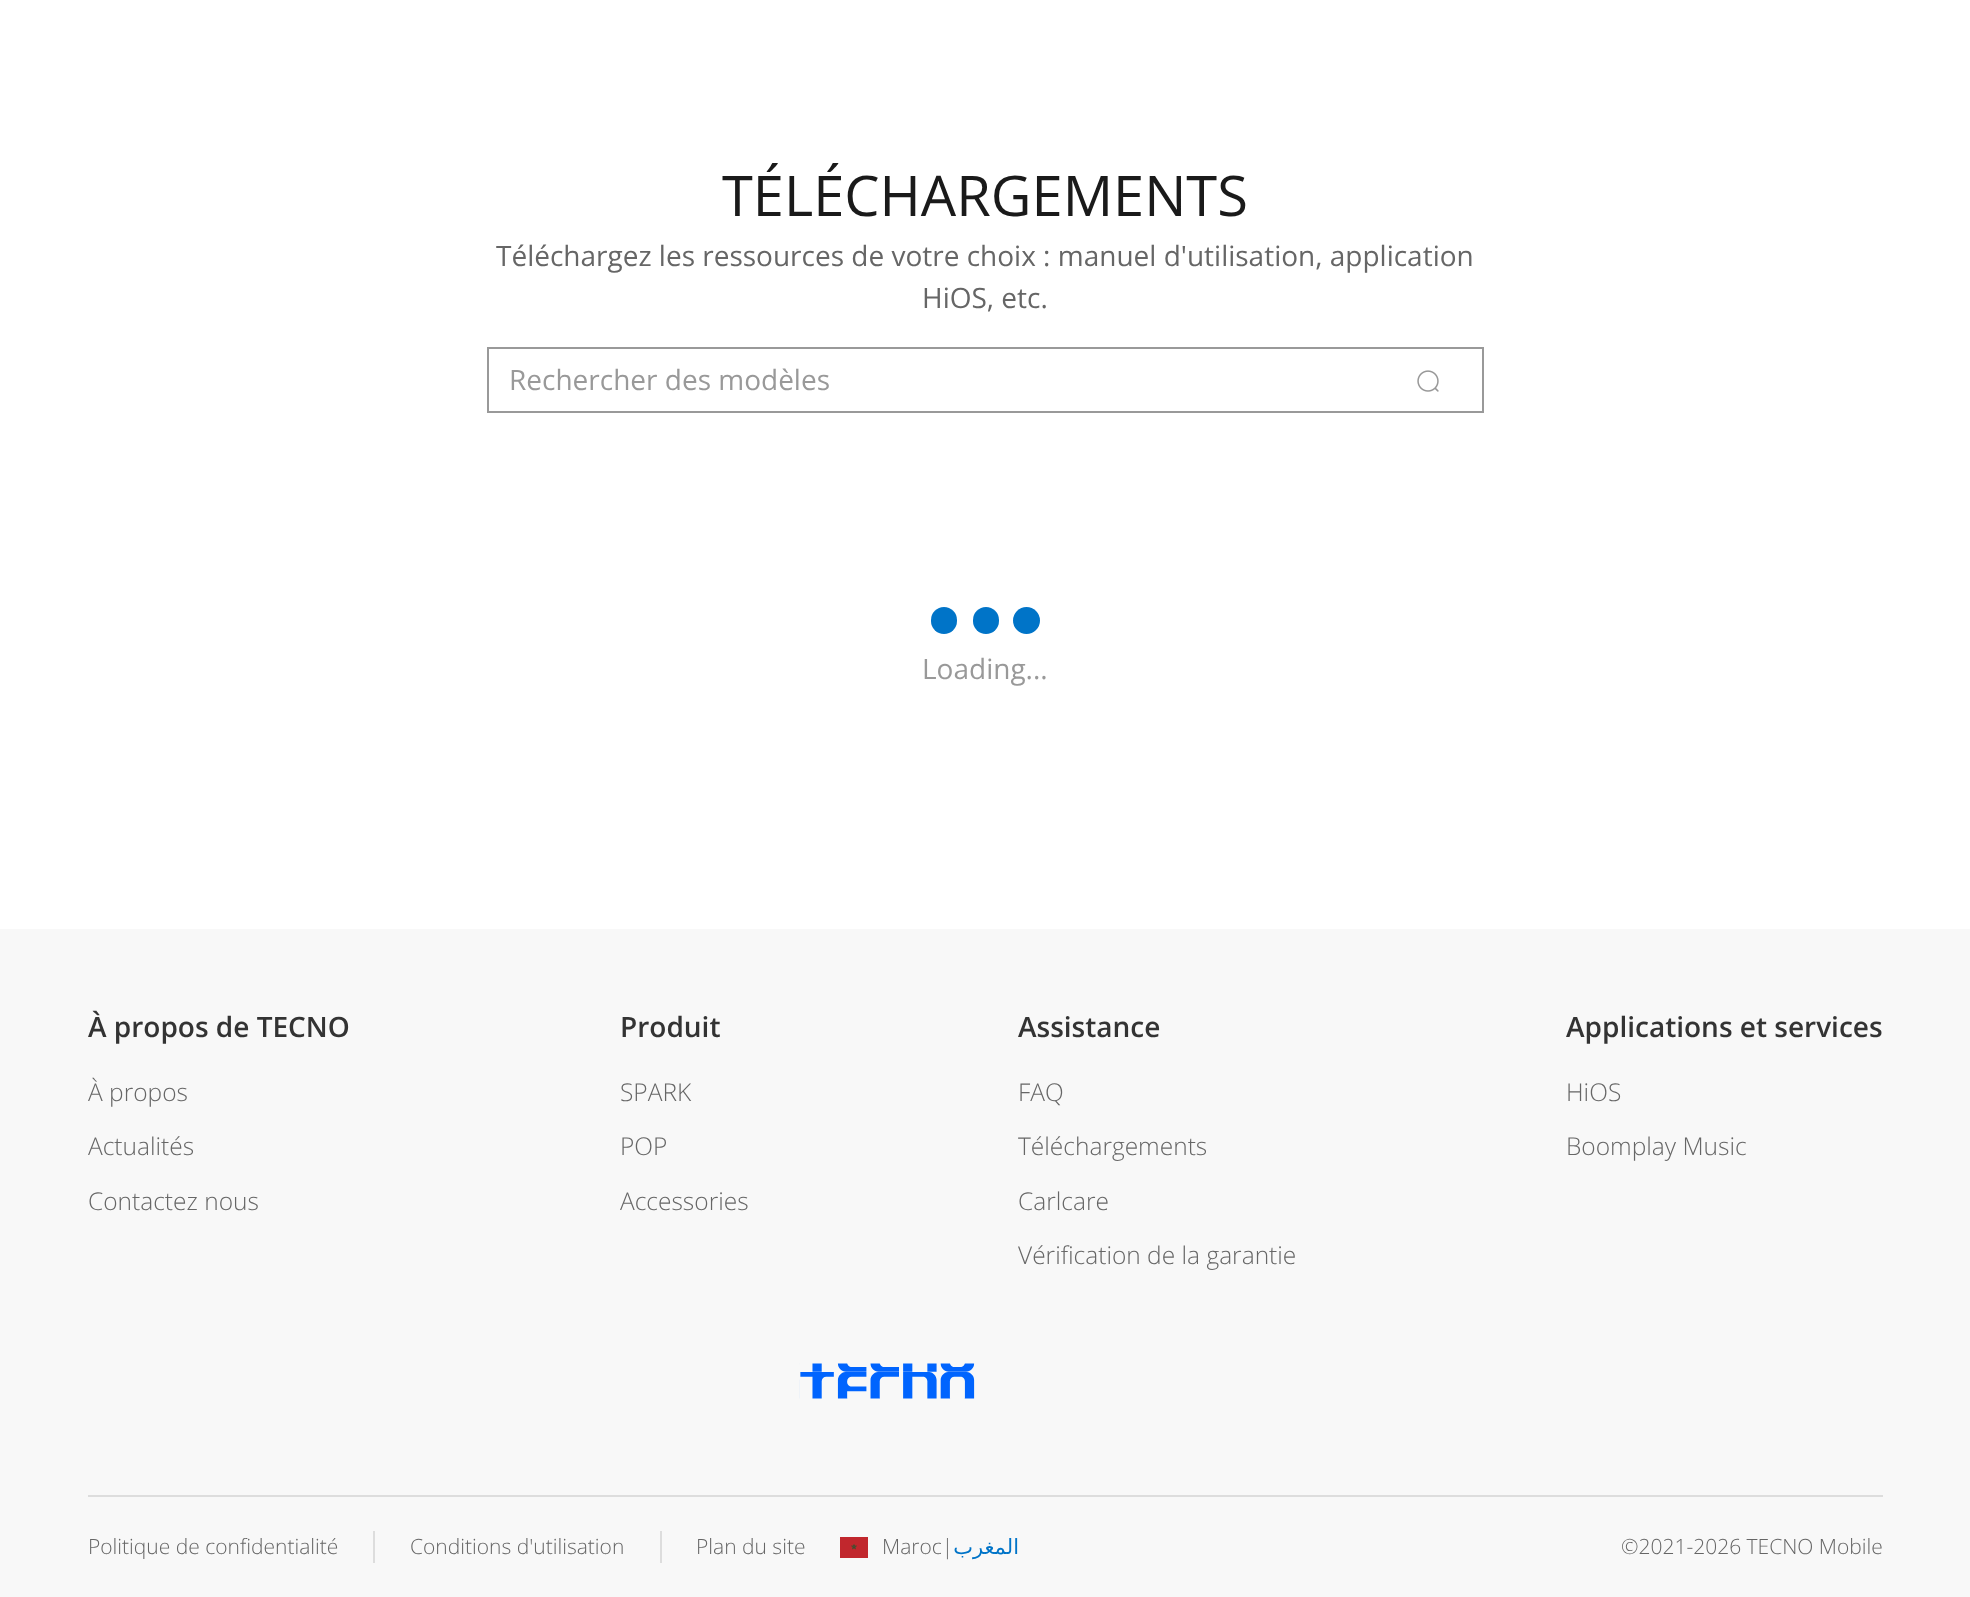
<?xml version="1.0" encoding="UTF-8"?>
<svg xmlns="http://www.w3.org/2000/svg" width="1970" height="1597">
    <rect width="100%" height="100%" fill="#FFFFFF"/>
    <text x="722" y="216" font-family="Open Sans" font-size="56" fill="#1A1A1A">TÉLÉCHARGEMENTS</text>
    <text x="496" y="266" font-family="Open Sans" font-size="28" fill="#666666">Téléchargez les ressources de votre choix : manuel d'utilisation, application</text>
    <text x="922" y="308" font-family="Open Sans" font-size="28" fill="#666666">HiOS, etc.</text>
    <rect x="488" y="348" width="995" height="64" fill="none" stroke="#999999" stroke-width="2"/>
    <text x="509" y="390" font-family="Open Sans" font-size="28" fill="#999999">Rechercher des modèles</text>
    <image x="1417" y="370" width="22" height="22" href="img_01.png"/>
    <rect x="931" y="607" width="26" height="27" rx="13" fill="#0074C8"/>
    <rect x="973" y="607" width="26" height="27" rx="13" fill="#0074C8"/>
    <circle cx="1026.5" cy="620.5" r="13.5" fill="#0074C8"/>
    <text x="922" y="679" font-family="Open Sans" font-size="28" fill="#999999">Loading...</text>
    <rect x="0" y="929" width="1970" height="668" fill="#F8F8F8"/>
    <text x="88" y="1037" font-family="Open Sans" font-size="28" font-weight="600" fill="#333333">À propos de TECNO</text>
    <text x="88" y="1101" font-family="Open Sans" font-size="24.5" font-weight="300" fill="#666666">À propos</text>
    <text x="88" y="1155" font-family="Open Sans" font-size="24.5" font-weight="300" fill="#666666">Actualités</text>
    <text x="88" y="1210" font-family="Open Sans" font-size="24.5" font-weight="300" fill="#666666">Contactez nous</text>
    <text x="620" y="1037" font-family="Open Sans" font-size="28" font-weight="600" fill="#333333">Produit</text>
    <text x="620" y="1101" font-family="Open Sans" font-size="24.5" font-weight="300" fill="#666666">SPARK</text>
    <text x="620" y="1155" font-family="Open Sans" font-size="24.5" font-weight="300" fill="#666666">POP</text>
    <text x="620" y="1210" font-family="Open Sans" font-size="24.5" font-weight="300" fill="#666666">Accessories</text>
    <text x="1018" y="1037" font-family="Open Sans" font-size="28" font-weight="600" fill="#333333">Assistance</text>
    <text x="1018" y="1101" font-family="Open Sans" font-size="24.5" font-weight="300" fill="#666666">FAQ</text>
    <text x="1018" y="1155" font-family="Open Sans" font-size="24.5" font-weight="300" fill="#666666">Téléchargements</text>
    <text x="1018" y="1210" font-family="Open Sans" font-size="24.5" font-weight="300" fill="#666666">Carlcare</text>
    <text x="1018" y="1264" font-family="Open Sans" font-size="24.5" font-weight="300" fill="#666666">Vérification de la garantie</text>
    <text x="1566" y="1037" font-family="Open Sans" font-size="28" font-weight="600" fill="#333333">Applications et services</text>
    <text x="1566" y="1101" font-family="Open Sans" font-size="24.5" font-weight="300" fill="#666666">HiOS</text>
    <text x="1566" y="1155" font-family="Open Sans" font-size="24.5" font-weight="300" fill="#666666">Boomplay Music</text>
    <image x="799" y="1363" width="176" height="36" href="img_02.png"/>
    <rect x="88" y="1495" width="1795" height="2" fill="#DDDDDD"/>
    <text x="88" y="1554" font-family="Open Sans" font-size="21" font-weight="300" fill="#666666">Politique de confidentialité</text>
    <rect x="373" y="1531" width="2" height="32" fill="#DDDDDD"/>
    <text x="410" y="1554" font-family="Open Sans" font-size="21" font-weight="300" fill="#666666">Conditions d'utilisation</text>
    <rect x="660" y="1531" width="2" height="32" fill="#DDDDDD"/>
    <text x="696" y="1554" font-family="Open Sans" font-size="21" font-weight="300" fill="#666666">Plan du site</text>
    <rect x="840" y="1537" width="28" height="21" fill="#C1272D"/>
    <path d="M 854 1544.5 L 852.5 1549 L 856.5 1546 H 851.5 L 855.5 1549 Z" fill="none" stroke="#006233" stroke-width="0.5"/>
    <text x="882" y="1554" font-family="Open Sans" font-size="21" font-weight="300" fill="#666666">Maroc|</text>
    <text x="1019" y="1554" font-family="DejaVu Sans" font-size="21" direction="rtl" fill="#0074C8">المغرب</text>
    <text x="1621" y="1554" font-family="Open Sans" font-size="21" font-weight="300" fill="#666666">©2021-2026 TECNO Mobile</text>
</svg>
